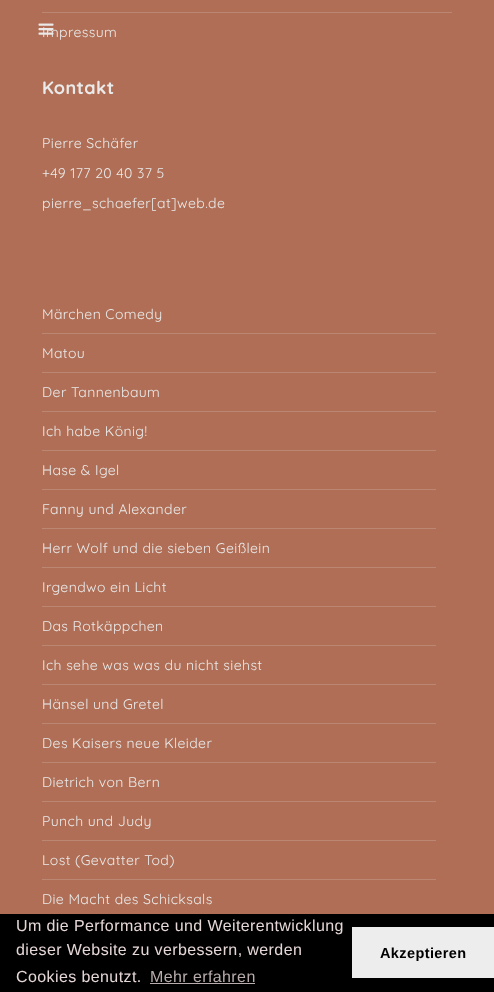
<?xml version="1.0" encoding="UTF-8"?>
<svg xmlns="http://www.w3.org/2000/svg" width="494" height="992">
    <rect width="100%" height="100%" fill="#AF6E55"/>
    <text x="42" y="37" font-family="Quicksand" font-size="14" letter-spacing="0.4" fill="#EAEAEA">Impressum</text>
    <image x="38" y="23" width="16" height="12" href="img_01.png"/>
    <rect x="42" y="12" width="410" height="1" fill="#BB8773"/>
    <text x="42" y="94" font-family="Quicksand" font-size="18" font-weight="700" letter-spacing="0.4" fill="#EAEAEA">Kontakt</text>
    <text x="42" y="148" font-family="Quicksand" font-size="14" letter-spacing="0.4" fill="#EAEAEA">Pierre Schäfer</text>
    <text x="42" y="178" font-family="Quicksand" font-size="14" letter-spacing="0.4" fill="#EAEAEA">+49 177 20 40 37 5</text>
    <text x="42" y="208" font-family="Quicksand" font-size="14" letter-spacing="0.4" fill="#EAEAEA">pierre_schaefer[at]web.de</text>
    <rect x="42" y="333" width="394" height="1" fill="#BB8773"/>
    <text x="42" y="319" font-family="Quicksand" font-size="14" letter-spacing="0.4" fill="#EAEAEA">Märchen Comedy</text>
    <rect x="42" y="372" width="394" height="1" fill="#BB8773"/>
    <text x="42" y="358" font-family="Quicksand" font-size="14" letter-spacing="0.4" fill="#EAEAEA">Matou</text>
    <rect x="42" y="411" width="394" height="1" fill="#BB8773"/>
    <text x="42" y="397" font-family="Quicksand" font-size="14" letter-spacing="0.4" fill="#EAEAEA">Der Tannenbaum</text>
    <rect x="42" y="450" width="394" height="1" fill="#BB8773"/>
    <text x="42" y="436" font-family="Quicksand" font-size="14" letter-spacing="0.4" fill="#EAEAEA">Ich habe König!</text>
    <rect x="42" y="489" width="394" height="1" fill="#BB8773"/>
    <text x="42" y="475" font-family="Quicksand" font-size="14" letter-spacing="0.4" fill="#EAEAEA">Hase &amp; Igel</text>
    <rect x="42" y="528" width="394" height="1" fill="#BB8773"/>
    <text x="42" y="514" font-family="Quicksand" font-size="14" letter-spacing="0.4" fill="#EAEAEA">Fanny und Alexander</text>
    <rect x="42" y="567" width="394" height="1" fill="#BB8773"/>
    <text x="42" y="553" font-family="Quicksand" font-size="14" letter-spacing="0.4" fill="#EAEAEA">Herr Wolf und die sieben Geißlein</text>
    <rect x="42" y="606" width="394" height="1" fill="#BB8773"/>
    <text x="42" y="592" font-family="Quicksand" font-size="14" letter-spacing="0.4" fill="#EAEAEA">Irgendwo ein Licht</text>
    <rect x="42" y="645" width="394" height="1" fill="#BB8773"/>
    <text x="42" y="631" font-family="Quicksand" font-size="14" letter-spacing="0.4" fill="#EAEAEA">Das Rotkäppchen</text>
    <rect x="42" y="684" width="394" height="1" fill="#BB8773"/>
    <text x="42" y="670" font-family="Quicksand" font-size="14" letter-spacing="0.4" fill="#EAEAEA">Ich sehe was was du nicht siehst</text>
    <rect x="42" y="723" width="394" height="1" fill="#BB8773"/>
    <text x="42" y="709" font-family="Quicksand" font-size="14" letter-spacing="0.4" fill="#EAEAEA">Hänsel und Gretel</text>
    <rect x="42" y="762" width="394" height="1" fill="#BB8773"/>
    <text x="42" y="748" font-family="Quicksand" font-size="14" letter-spacing="0.4" fill="#EAEAEA">Des Kaisers neue Kleider</text>
    <rect x="42" y="801" width="394" height="1" fill="#BB8773"/>
    <text x="42" y="787" font-family="Quicksand" font-size="14" letter-spacing="0.4" fill="#EAEAEA">Dietrich von Bern</text>
    <rect x="42" y="840" width="394" height="1" fill="#BB8773"/>
    <text x="42" y="826" font-family="Quicksand" font-size="14" letter-spacing="0.4" fill="#EAEAEA">Punch und Judy</text>
    <rect x="42" y="879" width="394" height="1" fill="#BB8773"/>
    <text x="42" y="865" font-family="Quicksand" font-size="14" letter-spacing="0.4" fill="#EAEAEA">Lost (Gevatter Tod)</text>
    <text x="42" y="904" font-family="Quicksand" font-size="14" letter-spacing="0.4" fill="#EAEAEA">Die Macht des Schicksals</text>
    <rect x="0" y="914" width="494" height="78" fill="#000000"/>
    <text font-family="Liberation Sans" font-size="16" letter-spacing="0.4" fill="#E6D7D7">
        <tspan x="16" y="931">Um die Performance und Weiterentwicklung</tspan>
        <tspan x="16" y="955">dieser Website zu verbessern, werden</tspan>
        <tspan x="16" y="982">Cookies benutzt.</tspan>
    </text>
    <text x="150" y="982" font-family="Liberation Sans" font-size="16" letter-spacing="0.4" fill="#B8ACAC">Mehr erfahren</text>
    <rect x="150" y="983" width="105" height="1" fill="#B8ACAC"/>
    <rect x="352" y="927" width="142" height="51" fill="#EDEDED"/>
    <text x="380" y="958" font-family="Liberation Sans" font-size="14.5" font-weight="700" letter-spacing="0.4" fill="#000000">Akzeptieren</text>
</svg>
